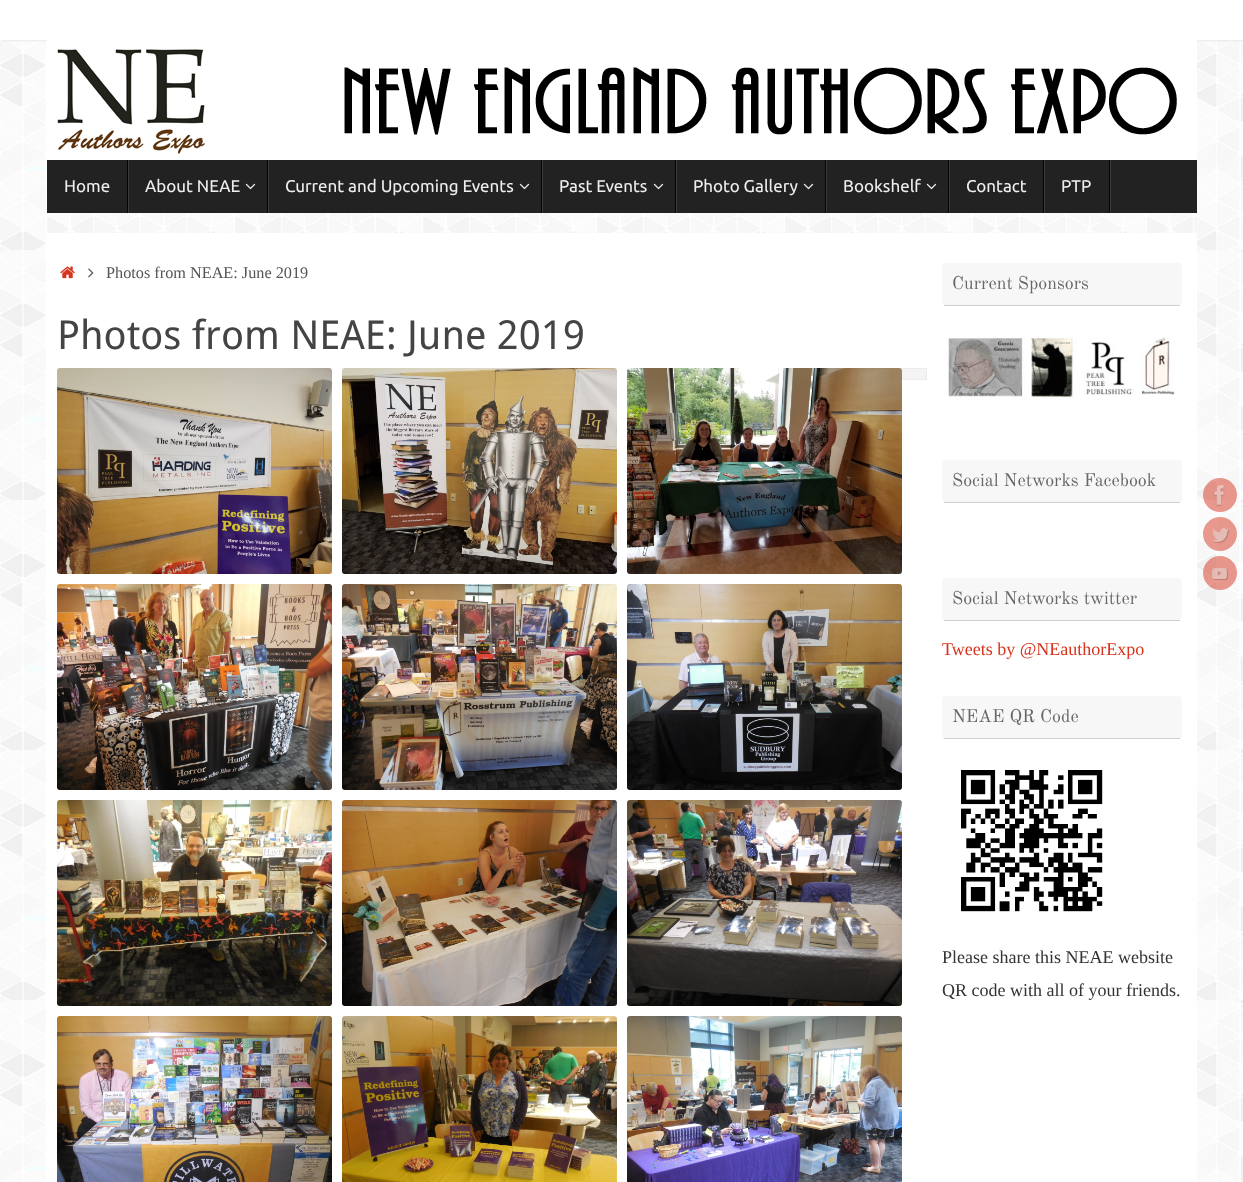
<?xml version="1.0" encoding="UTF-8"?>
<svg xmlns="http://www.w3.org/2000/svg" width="1243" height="1182">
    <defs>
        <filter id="blur1" x="-50%" y="-200%" width="200%" height="500%"><feGaussianBlur stdDeviation="1.5"/></filter>
    </defs>
    <rect width="100%" height="100%" fill="#FFFFFF"/>
    <image x="0" y="40" width="1243" height="1142" href="img_01.png"/>
    <rect x="3" y="0" width="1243" height="40" fill="#D7D7D7" filter="url(#blur1)"/>
    <rect x="1" y="0" width="1242" height="40" fill="#FFFFFF"/>
    <image x="47" y="40" width="1150" height="120" href="img_02.png"/>
    <rect x="47" y="160" width="1150" height="53" fill="#222222"/>
    <rect x="128" y="160" width="1" height="53" fill="#3A3A3A"/>
    <rect x="127" y="160" width="1" height="53" fill="#040404"/>
    <text x="64" y="192" font-family="Ubuntu" font-size="17" fill="#EEEEEE">Home</text>
    <rect x="268" y="160" width="1" height="53" fill="#3A3A3A"/>
    <rect x="267" y="160" width="1" height="53" fill="#040404"/>
    <text x="145" y="192" font-family="Ubuntu" font-size="17" fill="#EEEEEE">About NEAE</text>
    <image x="245" y="183" width="11" height="7" href="img_03.png"/>
    <rect x="542" y="160" width="1" height="53" fill="#3A3A3A"/>
    <rect x="541" y="160" width="1" height="53" fill="#040404"/>
    <text x="285" y="192" font-family="Ubuntu" font-size="17" fill="#EEEEEE">Current and Upcoming Events</text>
    <image x="519" y="183" width="11" height="7" href="img_03.png"/>
    <rect x="676" y="160" width="1" height="53" fill="#3A3A3A"/>
    <rect x="675" y="160" width="1" height="53" fill="#040404"/>
    <text x="559" y="192" font-family="Ubuntu" font-size="17" fill="#EEEEEE">Past Events</text>
    <image x="653" y="183" width="11" height="7" href="img_03.png"/>
    <rect x="826" y="160" width="1" height="53" fill="#3A3A3A"/>
    <rect x="825" y="160" width="1" height="53" fill="#040404"/>
    <text x="693" y="192" font-family="Ubuntu" font-size="17" fill="#EEEEEE">Photo Gallery</text>
    <image x="803" y="183" width="11" height="7" href="img_03.png"/>
    <rect x="949" y="160" width="1" height="53" fill="#3A3A3A"/>
    <rect x="948" y="160" width="1" height="53" fill="#040404"/>
    <text x="843" y="192" font-family="Ubuntu" font-size="17" fill="#EEEEEE">Bookshelf</text>
    <image x="926" y="183" width="11" height="7" href="img_03.png"/>
    <rect x="1044" y="160" width="1" height="53" fill="#3A3A3A"/>
    <rect x="1043" y="160" width="1" height="53" fill="#040404"/>
    <text x="966" y="192" font-family="Ubuntu" font-size="17" fill="#EEEEEE">Contact</text>
    <rect x="1110" y="160" width="1" height="53" fill="#3A3A3A"/>
    <rect x="1109" y="160" width="1" height="53" fill="#040404"/>
    <text x="1061" y="192" font-family="Ubuntu" font-size="17" fill="#EEEEEE">PTP</text>
    <rect x="47" y="233" width="1150" height="949" fill="#FFFFFF"/>
    <image x="60" y="266" width="15" height="13" href="img_04.png"/>
    <image x="88" y="268" width="6" height="10" href="img_05.png"/>
    <text x="106" y="278" font-family="Liberation Serif" font-size="16.25" fill="#555555">Photos from NEAE: June 2019</text>
    <text x="57" y="349" font-family="Droid Sans" font-size="40" fill="#444444">Photos from NEAE: June 2019</text>
    <image x="57" y="368" width="275" height="206" href="img_06.png"/>
    <image x="342" y="368" width="275" height="206" href="img_07.png"/>
    <rect x="901" y="369" width="25" height="10" fill="#F4F4F4"/>
    <rect x="872.5" y="368.5" width="54" height="11" fill="none" stroke="#EBEBEB"/>
    <image x="627" y="368" width="275" height="206" href="img_08.png"/>
    <image x="57" y="584" width="275" height="206" href="img_09.png"/>
    <image x="342" y="584" width="275" height="206" href="img_10.png"/>
    <image x="627" y="584" width="275" height="206" href="img_11.png"/>
    <image x="57" y="800" width="275" height="206" href="img_12.png"/>
    <image x="342" y="800" width="275" height="206" href="img_13.png"/>
    <image x="627" y="800" width="275" height="206" href="img_14.png"/>
    <image x="57" y="1016" width="275" height="166" href="img_15.png"/>
    <image x="342" y="1016" width="275" height="166" href="img_16.png"/>
    <image x="627" y="1016" width="275" height="166" href="img_17.png"/>
    <rect x="942" y="263" width="240" height="43" rx="4" fill="#F7F7F7"/>
    <rect x="944" y="305" width="236" height="1" fill="#CFCFCF"/>
    <text x="952" y="289" font-family="Old Standard TT" font-size="18" fill="#666666">Current Sponsors</text>
    <image x="948" y="337" width="231" height="64" href="img_18.png"/>
    <rect x="942" y="460" width="240" height="43" rx="4" fill="#F7F7F7"/>
    <rect x="944" y="502" width="236" height="1" fill="#CFCFCF"/>
    <text x="952" y="486" font-family="Old Standard TT" font-size="18" fill="#666666">Social Networks Facebook</text>
    <rect x="942" y="578" width="240" height="43" rx="4" fill="#F7F7F7"/>
    <rect x="944" y="620" width="236" height="1" fill="#CFCFCF"/>
    <text x="952" y="604" font-family="Old Standard TT" font-size="18" fill="#666666">Social Networks twitter</text>
    <text x="942" y="655" font-family="Liberation Serif" font-size="18" fill="#D6341D">Tweets by @NEauthorExpo</text>
    <rect x="942" y="696" width="240" height="43" rx="4" fill="#F7F7F7"/>
    <rect x="944" y="738" width="236" height="1" fill="#CFCFCF"/>
    <text x="952" y="722" font-family="Old Standard TT" font-size="18" fill="#666666">NEAE QR Code</text>
    <image x="961" y="770" width="142" height="142" href="img_19.png"/>
    <text font-family="Liberation Serif" font-size="18" fill="#333333">
        <tspan x="942" y="963">Please share this NEAE website</tspan>
        <tspan x="942" y="996">QR code with all of your friends.</tspan>
    </text>
    <circle cx="1220" cy="495" r="17" fill="#D6341D" fill-opacity="0.5"/>
    <image x="1213" y="485" width="12" height="22" href="img_20.png"/>
    <circle cx="1220" cy="534" r="17" fill="#D6341D" fill-opacity="0.5"/>
    <image x="1212" y="528" width="18" height="15" href="img_21.png"/>
    <circle cx="1220" cy="573" r="17" fill="#D6341D" fill-opacity="0.5"/>
    <image x="1212" y="568" width="16" height="12" href="img_22.png"/>
</svg>
